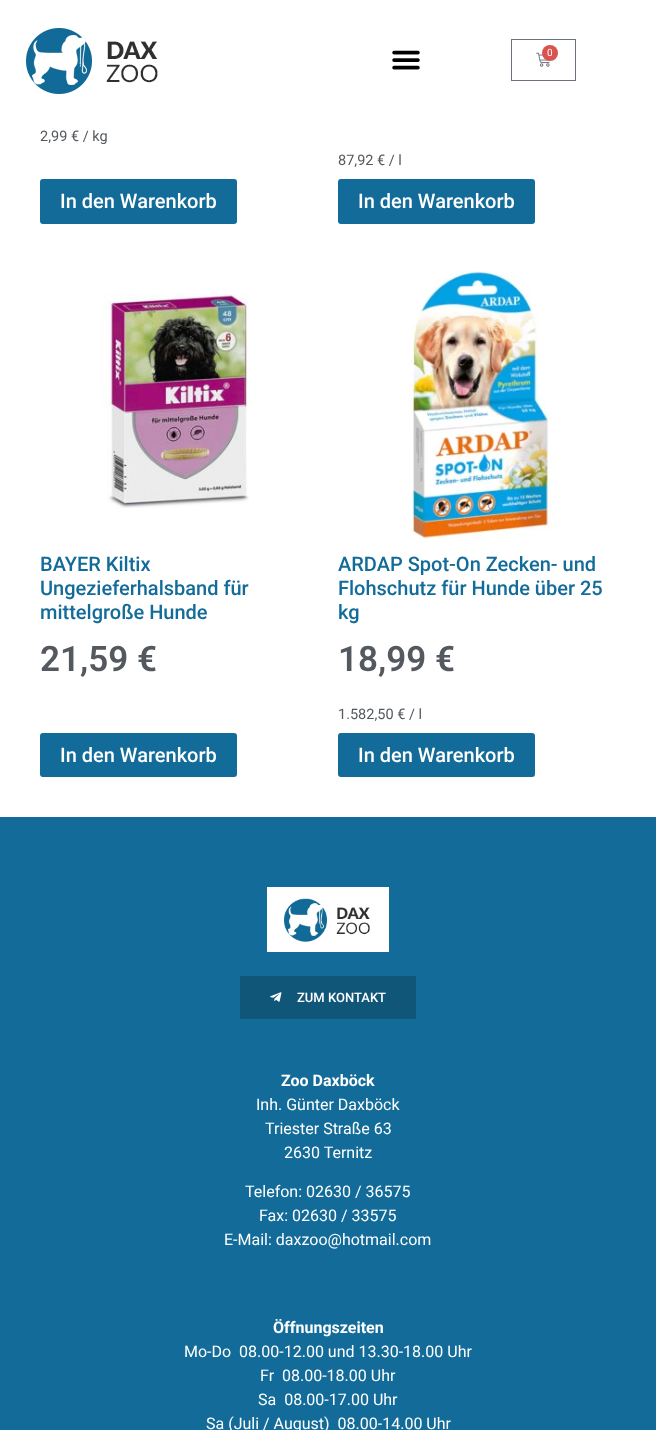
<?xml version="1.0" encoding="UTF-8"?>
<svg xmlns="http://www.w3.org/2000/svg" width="656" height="1430">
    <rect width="100%" height="100%" fill="#FFFFFF"/>
    <image x="26" y="27" width="132" height="67" href="img_01.png"/>
    <image x="392" y="50" width="28" height="20" href="img_02.png"/>
    <rect x="511.5" y="39.5" width="64" height="41" fill="none" stroke="#69727D"/>
    <image x="536" y="52" width="14" height="15" href="img_03.png"/>
    <circle cx="550" cy="53" r="8" fill="#D9534F"/>
    <text x="547" y="56" font-family="Roboto" font-size="10" fill="#FFFFFF">0</text>
    <text x="40" y="141" font-family="Roboto" font-size="14.5" fill="#54595F">2,99 € / kg</text>
    <rect x="40" y="179" width="197" height="45" rx="3" fill="#126B98"/>
    <text x="60" y="208" font-family="Roboto" font-size="20" font-weight="500" fill="#FFFFFF">In den Warenkorb</text>
    <text x="338" y="165" font-family="Roboto" font-size="14.5" fill="#54595F">87,92 € / l</text>
    <rect x="338" y="179" width="197" height="45" rx="3" fill="#126B98"/>
    <text x="358" y="208" font-family="Roboto" font-size="20" font-weight="500" fill="#FFFFFF">In den Warenkorb</text>
    <image x="101" y="293" width="148" height="215" href="img_04.png"/>
    <text font-family="Roboto" font-size="20" font-weight="500" fill="#126B98">
        <tspan x="40" y="571">BAYER Kiltix</tspan>
        <tspan x="40" y="595">Ungezieferhalsband für</tspan>
        <tspan x="40" y="619">mittelgroße Hunde</tspan>
    </text>
    <text x="40" y="671" font-family="Roboto" font-size="35" font-weight="600" fill="#54595F">21,59 €</text>
    <rect x="40" y="733" width="197" height="44" rx="3" fill="#126B98"/>
    <text x="60" y="762" font-family="Roboto" font-size="20" font-weight="500" fill="#FFFFFF">In den Warenkorb</text>
    <image x="411" y="271" width="143" height="268" href="img_05.png"/>
    <text font-family="Roboto" font-size="20" font-weight="500" fill="#126B98">
        <tspan x="338" y="571">ARDAP Spot-On Zecken- und</tspan>
        <tspan x="338" y="595">Flohschutz für Hunde über 25</tspan>
        <tspan x="338" y="619">kg</tspan>
    </text>
    <text x="338" y="671" font-family="Roboto" font-size="35" font-weight="600" fill="#54595F">18,99 €</text>
    <text x="338" y="719" font-family="Roboto" font-size="14.5" fill="#54595F">1.582,50 € / l</text>
    <rect x="338" y="733" width="197" height="44" rx="3" fill="#126B98"/>
    <text x="358" y="762" font-family="Roboto" font-size="20" font-weight="500" fill="#FFFFFF">In den Warenkorb</text>
    <rect x="0" y="817" width="656" height="613" fill="#126B98"/>
    <image x="267" y="887" width="122" height="65" href="img_06.png"/>
    <rect x="240" y="976" width="176" height="43" fill="#0F5679"/>
    <image x="270" y="992" width="12" height="10" href="img_07.png"/>
    <text x="297" y="1002" font-family="Roboto" font-size="13" font-weight="500" fill="#FFFFFF">ZUM KONTAKT</text>
    <text x="281" y="1086" font-family="Roboto" font-size="16" font-weight="700" fill="#FFFFFF">Zoo Daxböck</text>
    <text x="256" y="1110" font-family="Roboto" font-size="16" fill="#FFFFFF">Inh. Günter Daxböck</text>
    <text x="265" y="1134" font-family="Roboto" font-size="16" fill="#FFFFFF">Triester Straße 63</text>
    <text x="284" y="1158" font-family="Roboto" font-size="16" fill="#FFFFFF">2630 Ternitz</text>
    <text x="245" y="1197" font-family="Roboto" font-size="16" fill="#FFFFFF">Telefon: 02630 / 36575</text>
    <text x="259" y="1221" font-family="Roboto" font-size="16" fill="#FFFFFF">Fax: 02630 / 33575</text>
    <text x="224" y="1245" font-family="Roboto" font-size="16" fill="#FFFFFF">E-Mail: daxzoo@hotmail.com</text>
    <text x="273" y="1333" font-family="Roboto" font-size="16" font-weight="700" fill="#FFFFFF">Öffnungszeiten</text>
    <text x="184" y="1357" font-family="Roboto" font-size="16" fill="#FFFFFF" xml:space="preserve">Mo-Do  08.00-12.00 und 13.30-18.00 Uhr</text>
    <text x="260" y="1381" font-family="Roboto" font-size="16" fill="#FFFFFF" xml:space="preserve">Fr  08.00-18.00 Uhr</text>
    <text x="258" y="1405" font-family="Roboto" font-size="16" fill="#FFFFFF" xml:space="preserve">Sa  08.00-17.00 Uhr</text>
    <text x="206" y="1429" font-family="Roboto" font-size="16" fill="#FFFFFF" xml:space="preserve">Sa (Juli / August)  08.00-14.00 Uhr</text>
</svg>
